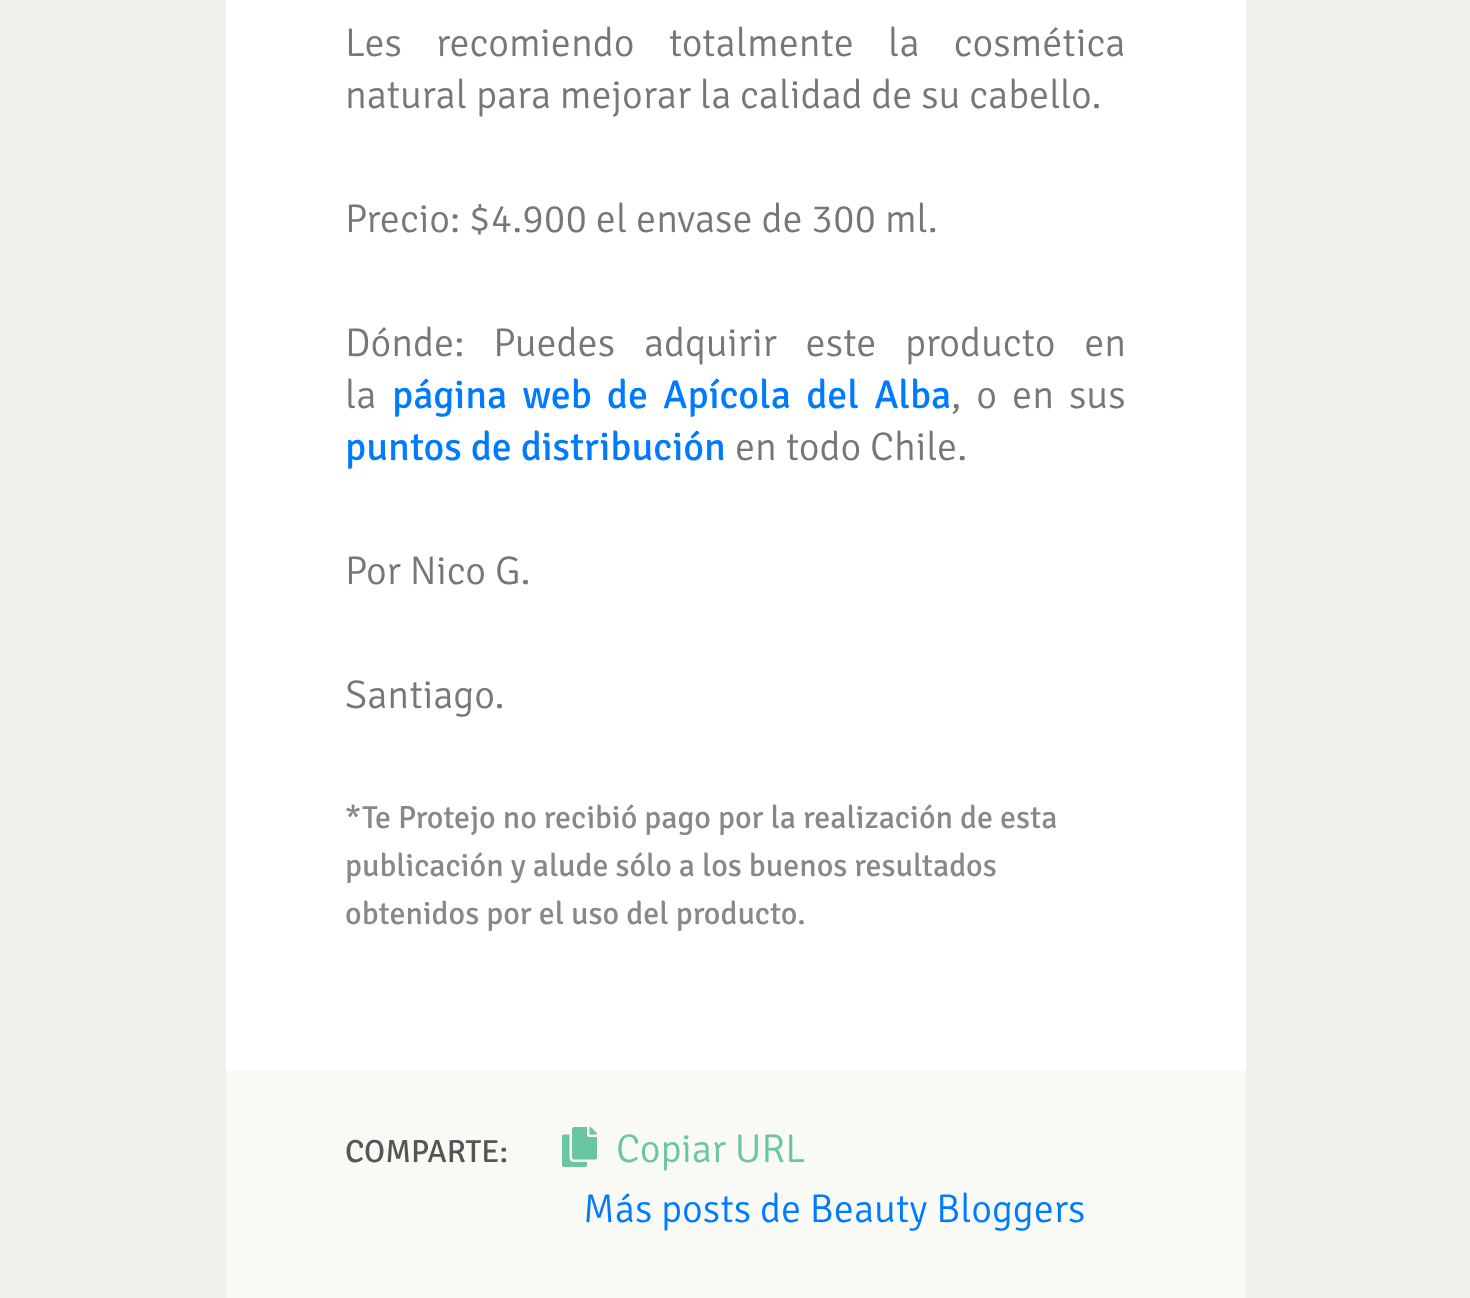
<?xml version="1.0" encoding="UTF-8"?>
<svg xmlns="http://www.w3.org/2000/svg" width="1470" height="1298">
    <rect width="100%" height="100%" fill="#F0F0EC"/>
    <rect x="226" y="0" width="1020" height="1070" fill="#FFFFFF"/>
    <text font-family="Signika" font-size="40" font-weight="300" fill="#777777">
        <tspan x="345" y="56" word-spacing="25.5">Les recomiendo totalmente la cosmética</tspan>
        <tspan x="345" y="108">natural para mejorar la calidad de su cabello.</tspan>
    </text>
    <text x="345" y="232" font-family="Signika" font-size="40" font-weight="300" fill="#777777">Precio: $4.900 el envase de 300 ml.</text>
    <text font-family="Signika" font-size="40" font-weight="300" fill="#777777">
        <tspan x="345" y="356" word-spacing="20">Dónde: Puedes adquirir este producto en</tspan>
        <tspan x="345" y="408">la</tspan>
    </text>
    <text x="392" y="408" word-spacing="6.25" font-family="Signika" font-size="40" fill="#007BFF">página web de Apícola del Alba</text>
    <text x="951" y="408" word-spacing="6.25" font-family="Signika" font-size="40" font-weight="300" fill="#777777">, o en sus</text>
    <text x="345" y="460" font-family="Signika" font-size="40" fill="#007BFF">puntos de distribución</text>
    <text x="735" y="460" font-family="Signika" font-size="40" font-weight="300" fill="#777777">en todo Chile.</text>
    <text x="345" y="584" font-family="Signika" font-size="40" font-weight="300" fill="#777777">Por Nico G.</text>
    <text x="345" y="708" font-family="Signika" font-size="40" font-weight="300" fill="#777777">Santiago.</text>
    <text font-family="Signika" font-size="32" fill="#888888">
        <tspan x="345" y="828">*Te Protejo no recibió pago por la realización de esta</tspan>
        <tspan x="345" y="876">publicación y alude sólo a los buenos resultados</tspan>
        <tspan x="345" y="924">obtenidos por el uso del producto.</tspan>
    </text>
    <rect x="226" y="1070" width="1020" height="228" fill="#F9F9F6"/>
    <text x="345" y="1162" font-family="Signika" font-size="32" fill="#555555">COMPARTE:</text>
    <image x="562" y="1127" width="35" height="40" href="img_01.png"/>
    <text x="616" y="1162" font-family="Signika" font-size="40" font-weight="300" fill="#6AC5A3">Copiar URL</text>
    <text x="583" y="1222" font-family="Signika" font-size="40" font-weight="300" fill="#007BFF">Más posts de Beauty Bloggers</text>
</svg>
